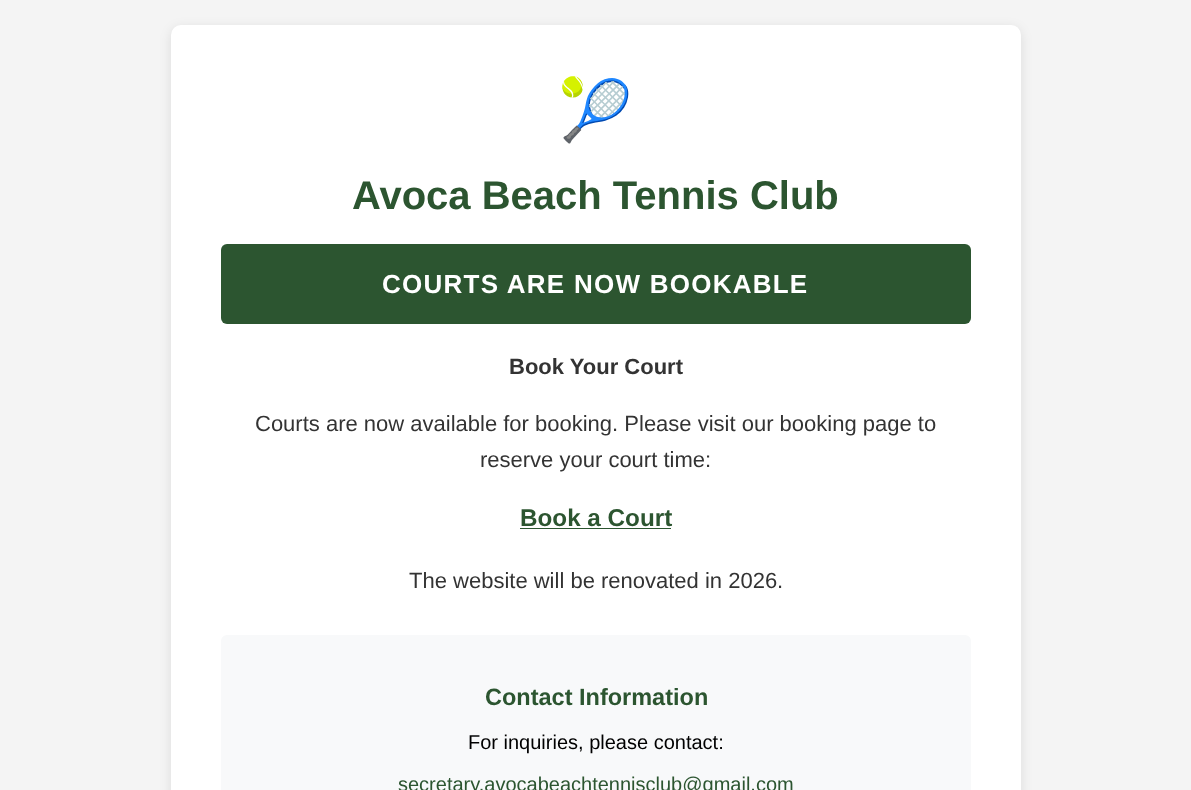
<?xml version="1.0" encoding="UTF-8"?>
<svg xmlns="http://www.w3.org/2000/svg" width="1191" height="790">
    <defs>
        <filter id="blur1" x="-50%" y="-200%" width="200%" height="500%"><feGaussianBlur stdDeviation="6"/></filter>
    </defs>
    <rect width="100%" height="100%" fill="#F4F4F4"/>
    <rect x="171" y="28" width="850" height="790" rx="10" fill="#000000" fill-opacity="0.1" filter="url(#blur1)"/>
    <rect x="171" y="25" width="850" height="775" rx="10" fill="#FFFFFF"/>
    <text x="558" y="131" font-family="Noto Color Emoji" font-size="60" fill="#000000">🎾</text>
    <text x="352" y="209" font-family="Liberation Sans" font-size="40" font-weight="700" fill="#2C5530">Avoca Beach Tennis Club</text>
    <rect x="221" y="244" width="750" height="80" rx="6" fill="#2C5530"/>
    <text x="382" y="293" font-family="Liberation Sans" font-size="26" font-weight="700" letter-spacing="1.25" fill="#FFFFFF">COURTS ARE NOW BOOKABLE</text>
    <text x="509" y="374" font-family="Liberation Sans" font-size="22" font-weight="700" fill="#333333">Book Your Court</text>
    <text x="255" y="431" font-family="Liberation Sans" font-size="22" fill="#333333">Courts are now available for booking. Please visit our booking page to</text>
    <text x="480" y="467" font-family="Liberation Sans" font-size="22" fill="#333333">reserve your court time:</text>
    <text x="520" y="526" font-family="Liberation Sans" font-size="24.25" font-weight="700" fill="#2C5530">Book a Court</text>
    <rect x="520" y="528" width="151" height="1" fill="#2C5530"/>
    <text x="409" y="588" font-family="Liberation Sans" font-size="22" fill="#333333">The website will be renovated in 2026.</text>
    <rect x="221" y="635" width="750" height="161" rx="6" fill="#F8F9FA"/>
    <text x="485" y="705" font-family="Liberation Sans" font-size="23.5" font-weight="700" fill="#2C5530">Contact Information</text>
    <text x="468" y="749" font-family="Liberation Sans" font-size="20" fill="#000000">For inquiries, please contact:</text>
    <text x="398" y="791" font-family="Liberation Sans" font-size="20" fill="#2C5530">secretary.avocabeachtennisclub@gmail.com</text>
</svg>
